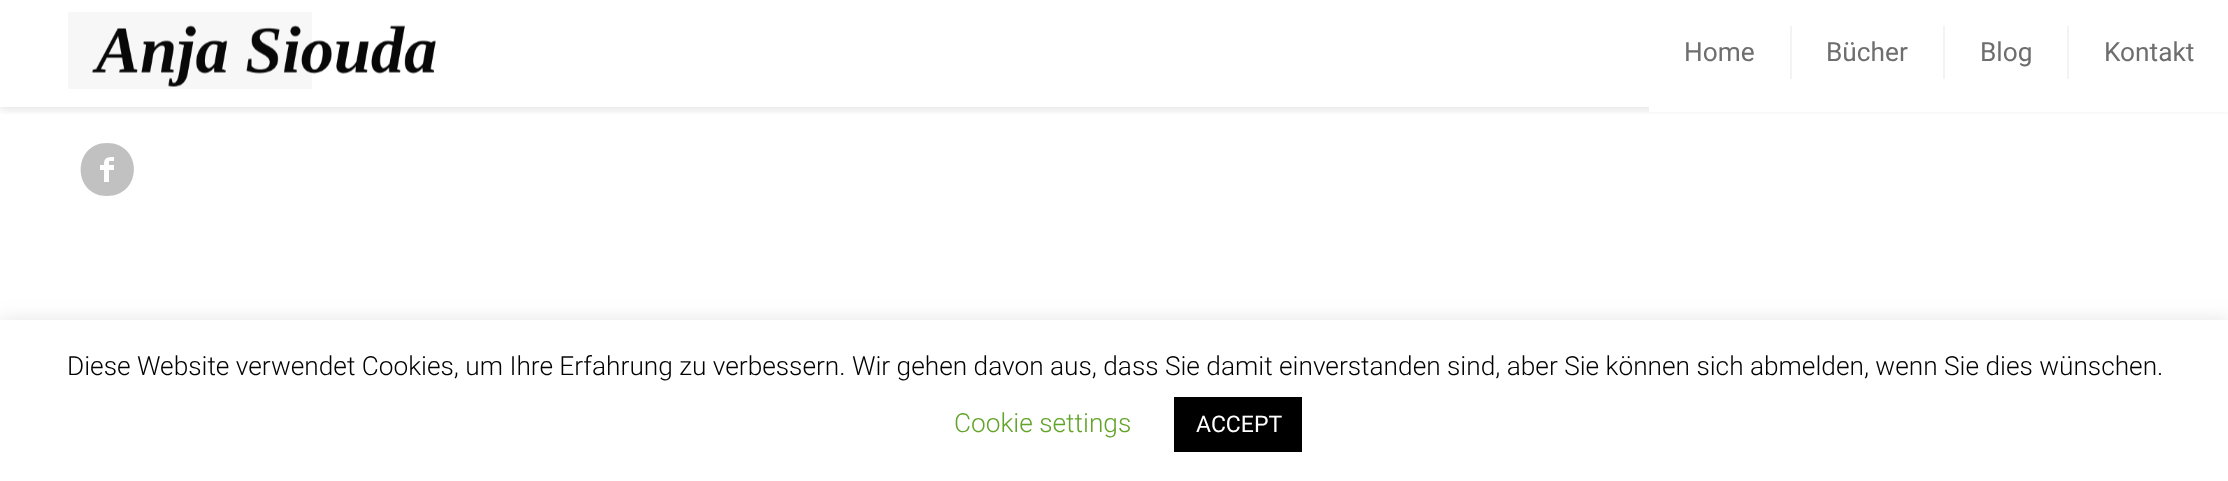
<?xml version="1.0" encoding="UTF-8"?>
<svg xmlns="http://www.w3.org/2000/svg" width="2228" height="481">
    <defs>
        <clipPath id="clip1"><rect x="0" y="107" width="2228" height="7"/></clipPath>
        <filter id="blur1" x="-50%" y="-200%" width="200%" height="500%"><feGaussianBlur stdDeviation="4.5"/></filter>
        <filter id="blur2" x="-50%" y="-200%" width="200%" height="500%"><feGaussianBlur stdDeviation="9"/></filter>
    </defs>
    <rect width="100%" height="100%" fill="#FFFFFF"/>
    <rect x="68" y="12" width="244" height="77" fill="#020202"/>
    <path d="M 107 143 C 143 143 143 196 107 196 C 72 196 72 143 107 143 Z M 114 161 V 157 C 106 157 104 158 104 165 H 100 V 170 H 104 V 182 H 109 V 170 H 114 V 165 H 109 C 109 160 108 161 114 161 Z" fill="#C1C1C1"/>
    <g clip-path="url(#clip1)">
        <rect x="0" y="4" width="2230" height="106" fill="#080808" fill-opacity="0.1" filter="url(#blur1)"/>
    </g>
    <rect x="1" y="12" width="2227" height="95" fill="#FFFFFF" fill-opacity="0.97"/>
    <image x="92" y="25" width="344" height="62" href="img_01.png"/>
    <rect x="1790" y="26" width="2" height="53" fill="#F3F3F3"/>
    <text x="1684" y="61" font-family="Roboto" font-size="26.25" fill="#6E6E6E">Home</text>
    <rect x="1649" y="107" width="579" height="5" fill="#FFFFFF"/>
    <rect x="1943" y="26" width="2" height="53" fill="#F3F3F3"/>
    <text x="1826" y="61" font-family="Roboto" font-size="26.25" fill="#6E6E6E">Bücher</text>
    <rect x="2067" y="26" width="2" height="53" fill="#F3F3F3"/>
    <text x="1980" y="61" font-family="Roboto" font-size="26.25" fill="#6E6E6E">Blog</text>
    <text x="2104" y="61" font-family="Roboto" font-size="26.25" fill="#6E6E6E">Kontakt</text>
    <rect x="0" y="319" width="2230" height="161" fill="#ACABAB" fill-opacity="0.3" filter="url(#blur2)"/>
    <rect x="0" y="320" width="2228" height="161" fill="#FFFFFF"/>
    <text x="67" y="375" font-family="Roboto" font-size="26.25" font-weight="300" fill="#000000">Diese Website verwendet Cookies, um Ihre Erfahrung zu verbessern. Wir gehen davon aus, dass Sie damit einverstanden sind, aber Sie können sich abmelden, wenn Sie dies wünschen.</text>
    <text x="954" y="432" font-family="Roboto" font-size="26.25" font-weight="300" fill="#62A329">Cookie settings</text>
    <rect x="1174" y="397" width="128" height="55" fill="#000000"/>
    <text x="1196" y="432" font-family="Roboto" font-size="23" fill="#FFFFFF">ACCEPT</text>
</svg>
